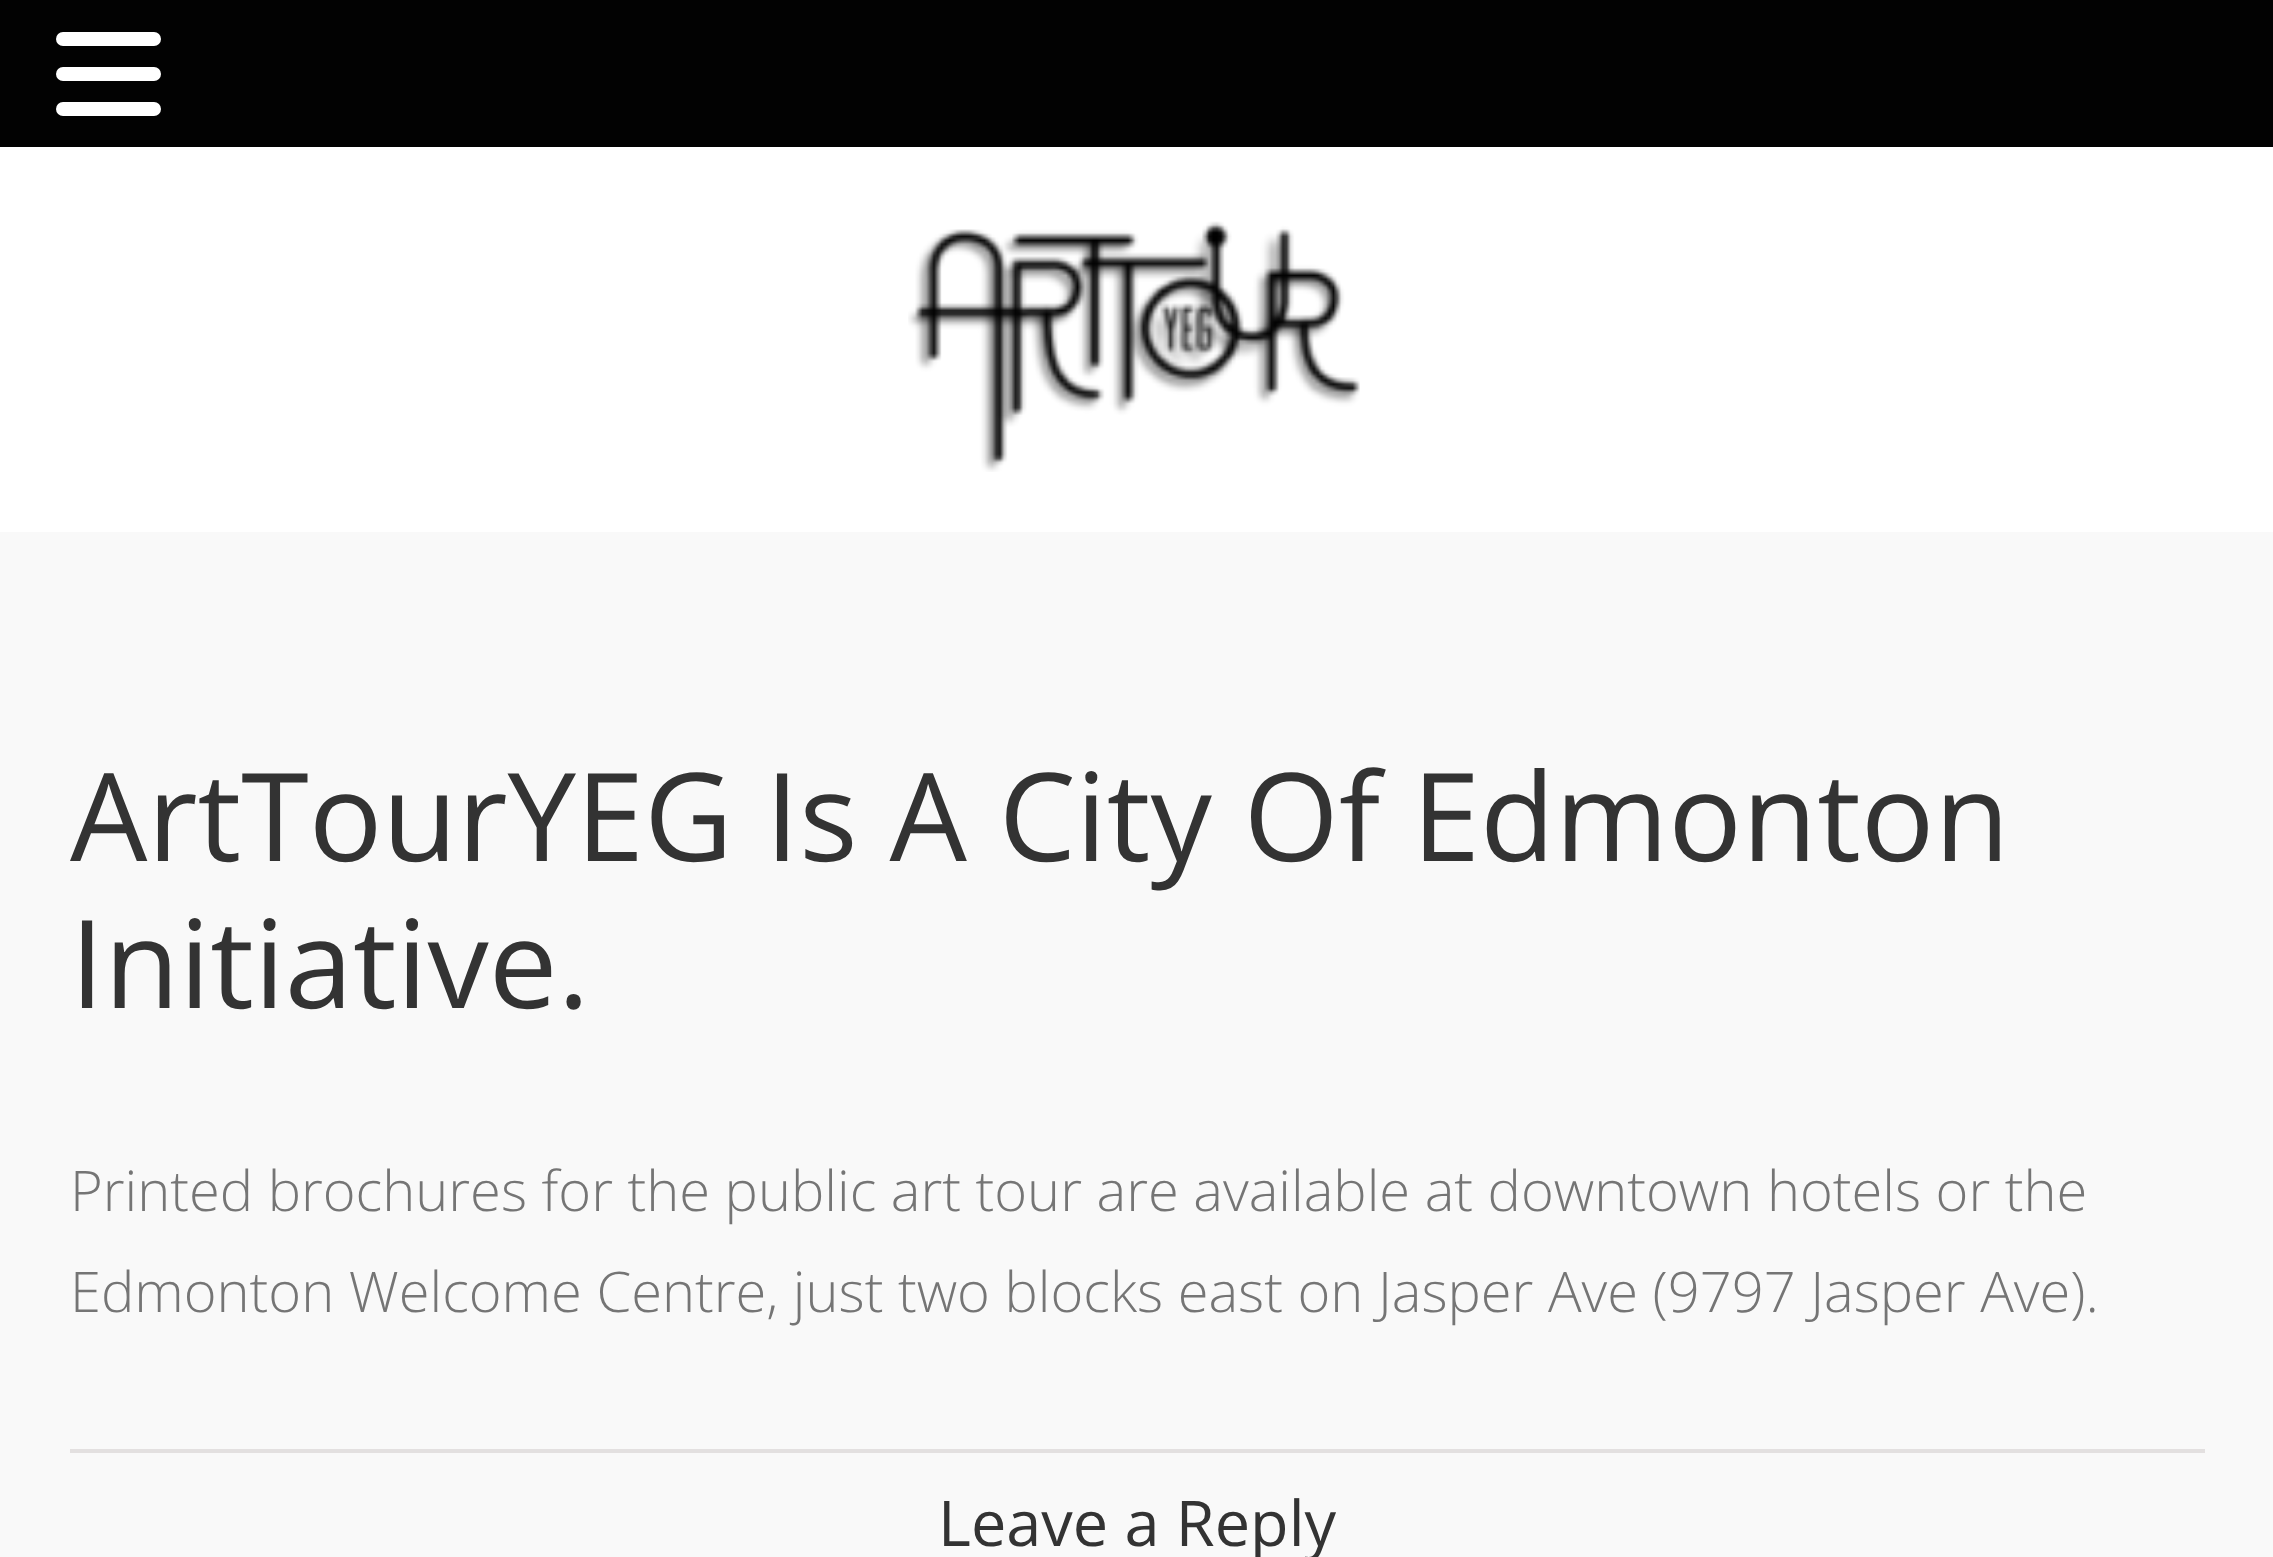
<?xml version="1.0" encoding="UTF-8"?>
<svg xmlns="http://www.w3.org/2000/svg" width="2273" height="1557">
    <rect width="100%" height="100%" fill="#F9F9F9"/>
    <rect x="0" y="0" width="2273" height="147" fill="#020202"/>
    <rect x="56" y="32" width="105" height="14" rx="7" fill="#FFFFFF"/>
    <rect x="56" y="67" width="105" height="14" rx="7" fill="#FFFFFF"/>
    <rect x="56" y="102" width="105" height="14" rx="7" fill="#FFFFFF"/>
    <rect x="0" y="147" width="2273" height="385" fill="#FFFFFF"/>
    <image x="908" y="221" width="452" height="251" href="img_01.png"/>
    <text font-family="Open Sans" font-size="122.5" fill="#333333">
        <tspan x="70" y="861">ArtTourYEG Is A City Of Edmonton</tspan>
        <tspan x="70" y="1008">Initiative.</tspan>
    </text>
    <text font-family="Open Sans" font-size="56" font-weight="300" fill="#757575">
        <tspan x="70" y="1211">Printed brochures for the public art tour are available at downtown hotels or the</tspan>
        <tspan x="70" y="1312">Edmonton Welcome Centre, just two blocks east on Jasper Ave (9797 Jasper Ave).</tspan>
    </text>
    <rect x="70" y="1449" width="2135" height="4" fill="#E3E0E0"/>
    <text x="938" y="1546" font-family="Open Sans" font-size="63" fill="#333333">Leave a Reply</text>
</svg>
